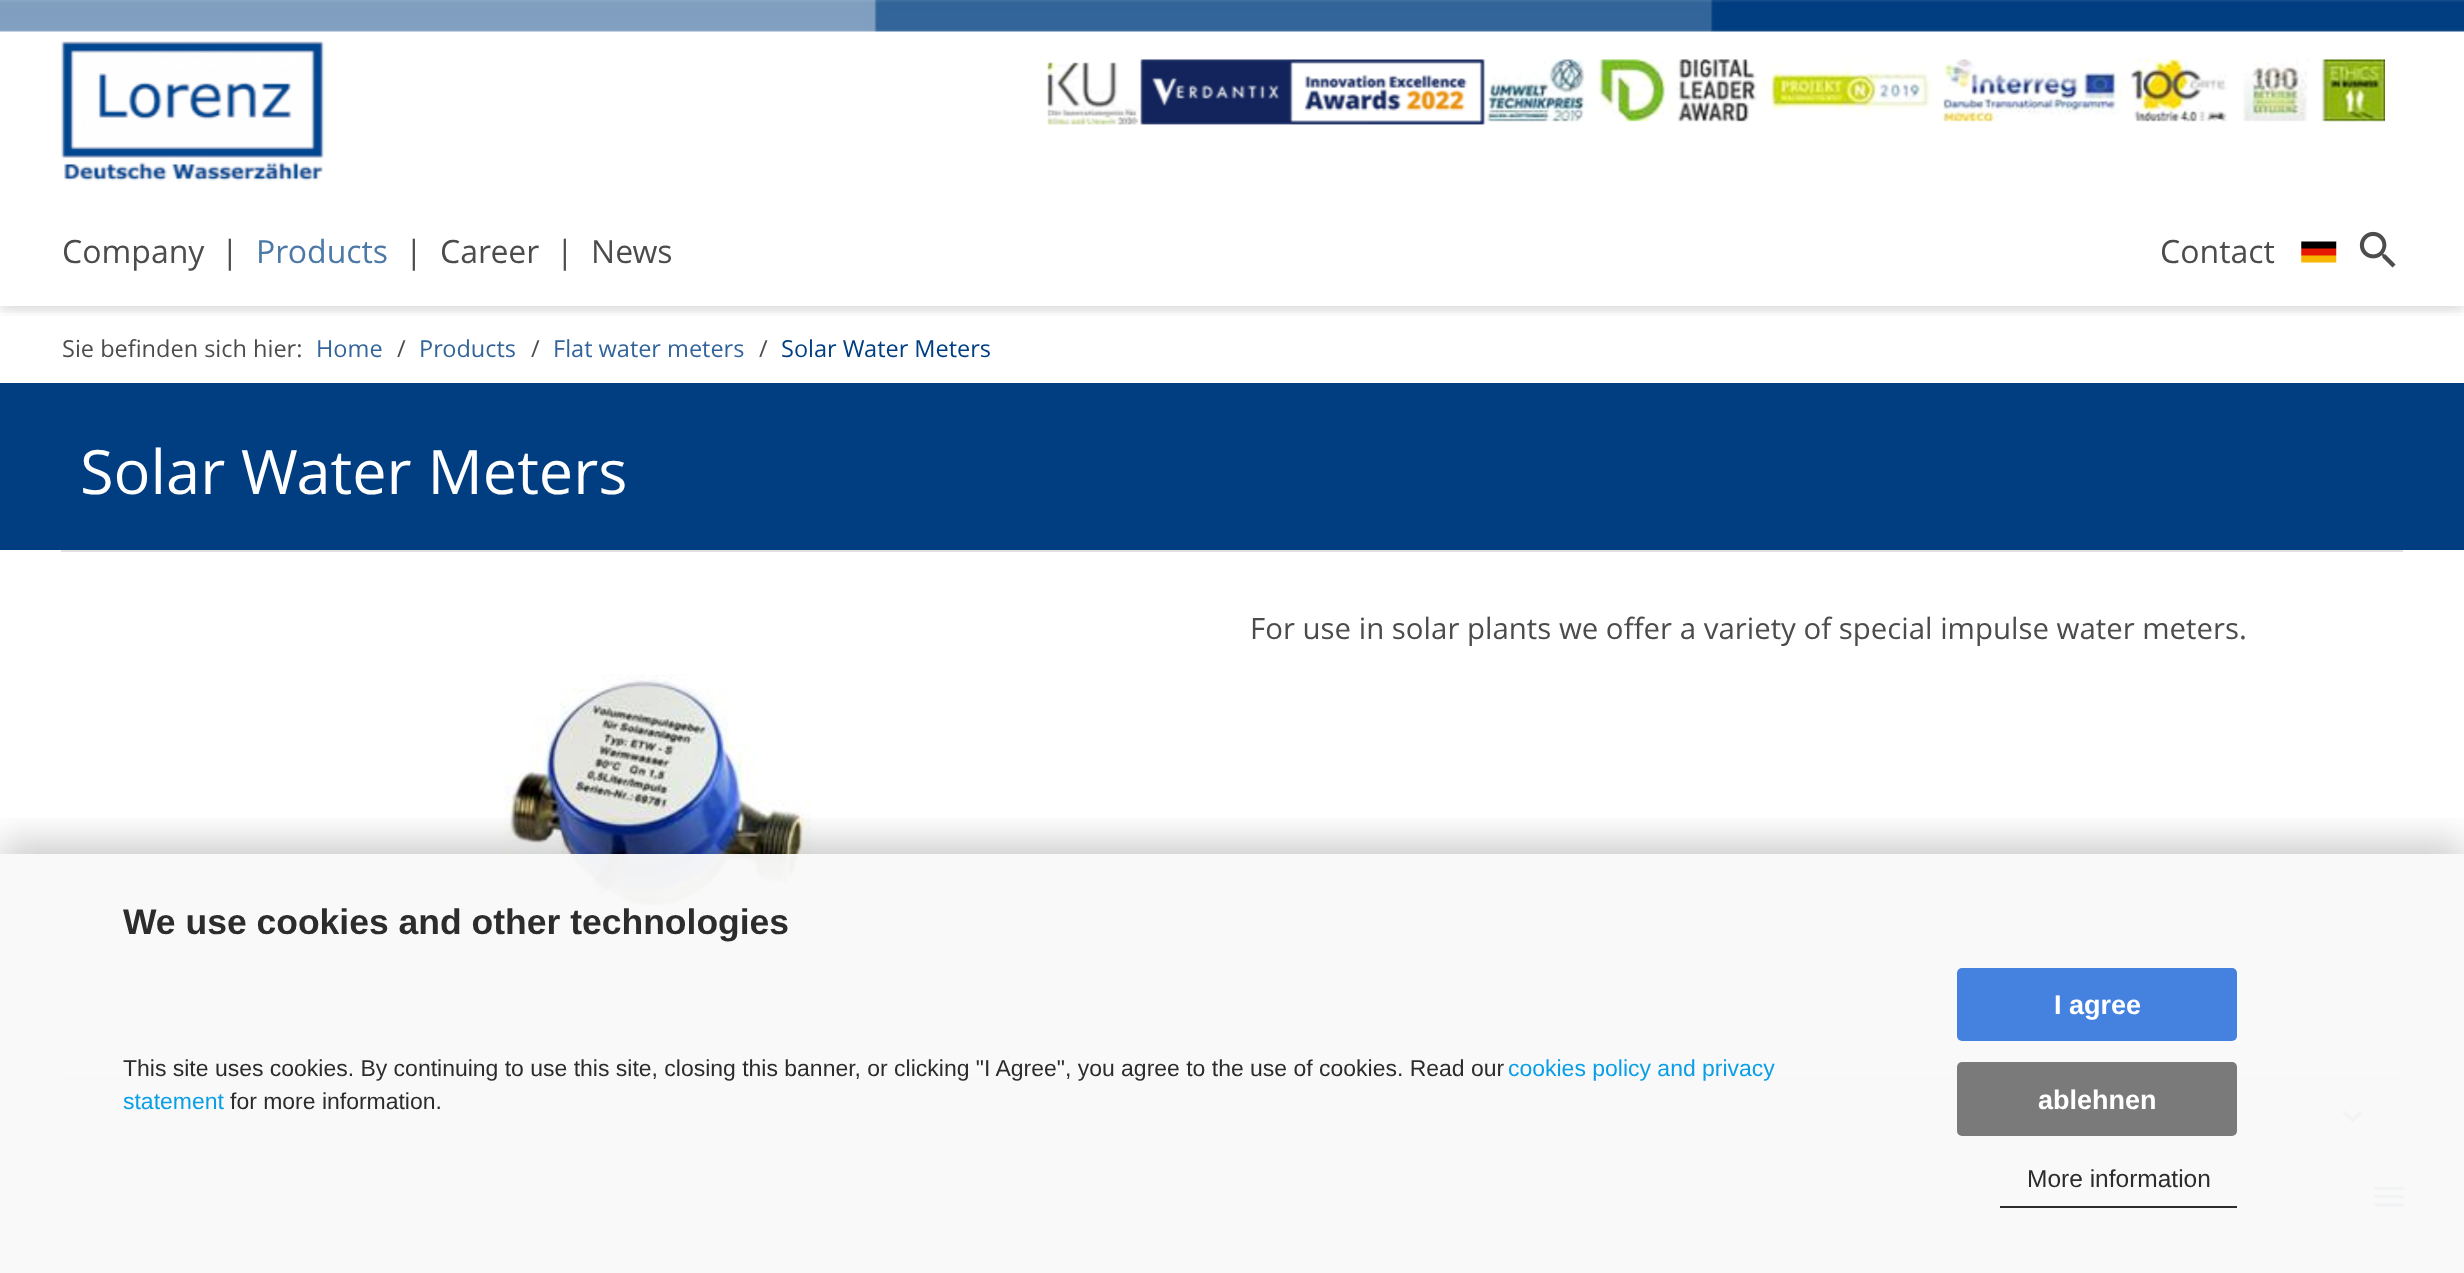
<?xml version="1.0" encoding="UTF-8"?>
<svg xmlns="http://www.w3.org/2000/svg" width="2464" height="1273">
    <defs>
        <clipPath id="clip1"><rect x="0" y="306" width="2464" height="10"/></clipPath>
        <filter id="blur1" x="-50%" y="-200%" width="200%" height="500%"><feGaussianBlur stdDeviation="9"/></filter>
        <clipPath id="clip2"><rect x="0" y="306" width="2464" height="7"/></clipPath>
        <filter id="blur2" x="-50%" y="-200%" width="200%" height="500%"><feGaussianBlur stdDeviation="4.5"/></filter>
        <clipPath id="clip3"><rect x="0" y="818" width="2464" height="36"/></clipPath>
        <filter id="blur3" x="-50%" y="-200%" width="200%" height="500%"><feGaussianBlur stdDeviation="17.5"/></filter>
    </defs>
    <rect width="100%" height="100%" fill="#FFFFFF"/>
    <g clip-path="url(#clip1)">
        <rect x="0" y="4" width="2464" height="306" fill="#000000" fill-opacity="0.08" filter="url(#blur1)"/>
    </g>
    <g clip-path="url(#clip2)">
        <rect x="0" y="4" width="2464" height="306" fill="#000000" fill-opacity="0.08" filter="url(#blur2)"/>
    </g>
    <image x="0" y="0" width="2464" height="32" href="img_01.png"/>
    <image x="61" y="41" width="264" height="140" href="img_02.png"/>
    <image x="1047" y="59" width="1338" height="66" href="img_03.png"/>
    <text x="62" y="263" font-family="Open Sans" font-size="32" fill="#4C4C4C">Company</text>
    <text x="221" y="263" font-family="Open Sans" font-size="32" fill="#4C4C4C">|</text>
    <text x="256" y="263" font-family="Open Sans" font-size="32" fill="#4D79A7">Products</text>
    <text x="405" y="263" font-family="Open Sans" font-size="32" fill="#4C4C4C">|</text>
    <text x="440" y="263" font-family="Open Sans" font-size="32" fill="#4C4C4C">Career</text>
    <text x="556" y="263" font-family="Open Sans" font-size="32" fill="#4C4C4C">|</text>
    <text x="591" y="263" font-family="Open Sans" font-size="32" fill="#4C4C4C">News</text>
    <text x="2160" y="263" font-family="Open Sans" font-size="32" fill="#4C4C4C">Contact</text>
    <image x="2301" y="241" width="36" height="22" href="img_04.png"/>
    <image x="2359" y="231" width="37" height="37" href="img_05.png"/>
    <text x="62" y="357" font-family="Open Sans" font-size="23.5" fill="#4C4C4C">Sie befinden sich hier:</text>
    <text x="316" y="357" font-family="Open Sans" font-size="23.5" fill="#33659A">Home</text>
    <text x="397" y="357" font-family="Open Sans" font-size="23.5" fill="#4C4C4C">/</text>
    <text x="419" y="357" font-family="Open Sans" font-size="23.5" fill="#33659A">Products</text>
    <text x="531" y="357" font-family="Open Sans" font-size="23.5" fill="#4C4C4C">/</text>
    <text x="553" y="357" font-family="Open Sans" font-size="23.5" fill="#33659A">Flat water meters</text>
    <text x="759" y="357" font-family="Open Sans" font-size="23.5" fill="#4C4C4C">/</text>
    <text x="781" y="357" font-family="Open Sans" font-size="23.5" fill="#003E81">Solar Water Meters</text>
    <rect x="0" y="383" width="2464" height="167" fill="#003E81"/>
    <text x="80" y="494" font-family="Open Sans" font-size="61.25" fill="#FFFFFF">Solar Water Meters</text>
    <rect x="61" y="550" width="2342" height="2" fill="#E0E0E0"/>
    <text x="1250" y="639" font-family="Open Sans" font-size="29.4" fill="#4C4C4C">For use in solar plants we offer a variety of special impulse water meters.</text>
    <image x="498" y="674" width="314" height="270" href="img_06.png"/>
    <rect x="61" y="1076" width="2342" height="2" fill="#E0E0E0"/>
    <rect x="2401" y="1078" width="2" height="91" fill="#DDDDDD"/>
    <rect x="61" y="1078" width="2" height="119" fill="#DDDDDD"/>
    <rect x="63" y="1078" width="2338" height="2" fill="#DDDDDD"/>
    <path d="M 2360 1110.5 L 2362 1113 L 2352.5 1122.5 L 2342.5 1113 L 2345 1110.5 L 2352.5 1118 Z" fill="#003E81"/>
    <rect x="63" y="1195" width="2295" height="2" fill="#E0E0E0"/>
    <rect x="2357" y="1166" width="65" height="64" rx="32" fill="#FFFFFF"/>
    <image x="2374" y="1186" width="30" height="21" href="img_07.png"/>
    <g clip-path="url(#clip3)">
        <rect x="0" y="840" width="2464" height="420" fill="#000000" fill-opacity="0.19" filter="url(#blur3)"/>
    </g>
    <rect x="0" y="854" width="2464" height="419" fill="#F9F9F9" fill-opacity="0.97"/>
    <text x="123" y="934" font-family="Liberation Sans" font-size="35.5" font-weight="700" fill="#2C2C2C">We use cookies and other technologies</text>
    <text x="123" y="1076" font-family="Liberation Sans" font-size="22.97" fill="#2C2C2C">This site uses cookies. By continuing to use this site, closing this banner, or clicking "I Agree", you agree to the use of cookies. Read our</text>
    <text x="1508" y="1076" font-family="Liberation Sans" font-size="22.97" fill="#0A9EE6">cookies policy and privacy</text>
    <text x="123" y="1109" font-family="Liberation Sans" font-size="22.97" fill="#0A9EE6">statement</text>
    <text x="230" y="1109" font-family="Liberation Sans" font-size="22.97" fill="#2C2C2C">for more information.</text>
    <rect x="1957" y="968" width="280" height="73" rx="5" fill="#4582E0"/>
    <text x="2054" y="1014" font-family="Liberation Sans" font-size="27" font-weight="700" fill="#FFFFFF">I agree</text>
    <rect x="1957" y="1062" width="280" height="74" rx="5" fill="#7A7A7A"/>
    <text x="2038" y="1109" font-family="Liberation Sans" font-size="27" font-weight="700" fill="#FFFFFF">ablehnen</text>
    <rect x="2000" y="1206" width="237" height="2" fill="#2D2D2D"/>
    <text x="2027" y="1187" font-family="Liberation Sans" font-size="24.5" fill="#2C2C2C">More information</text>
</svg>
